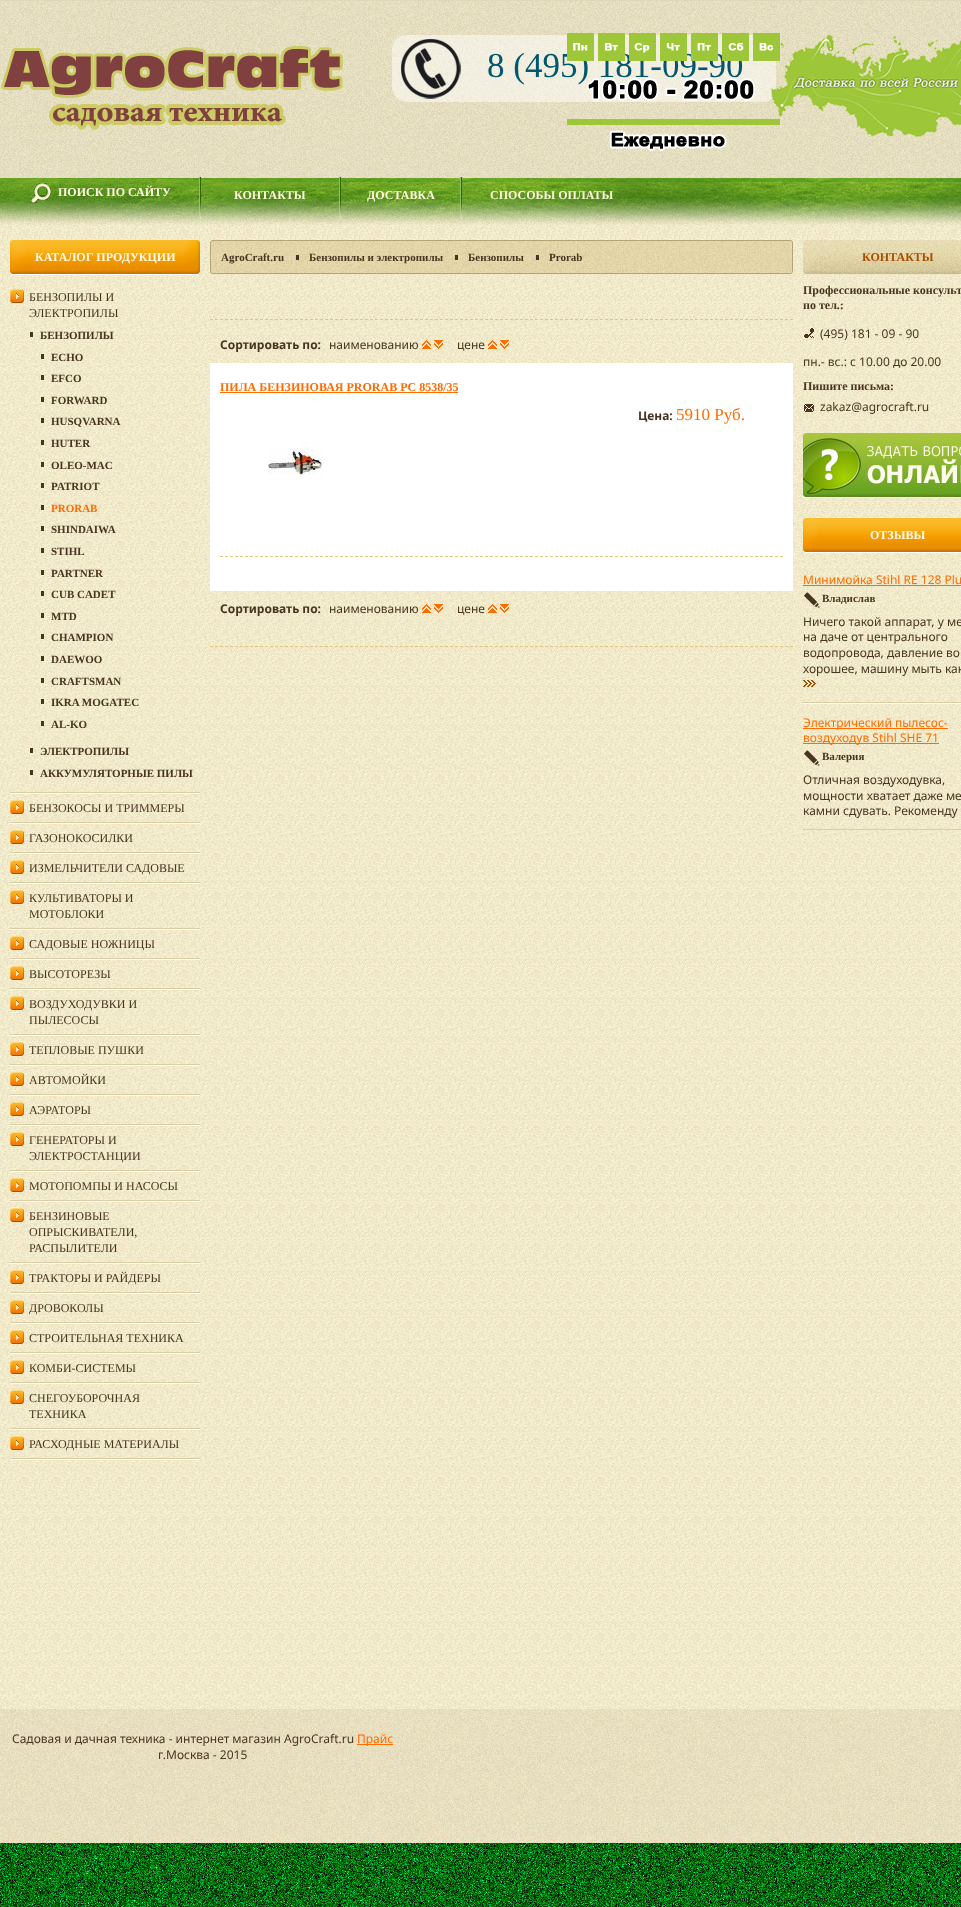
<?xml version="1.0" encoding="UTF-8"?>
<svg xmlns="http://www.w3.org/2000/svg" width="961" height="1907">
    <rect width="100%" height="100%" fill="#FFFFFF"/>
    <image x="0" y="230" width="961" height="1479" href="img_01.png"/>
    <image x="0" y="0" width="961" height="230" href="img_02.png"/>
    <image x="1" y="46" width="342" height="84" href="img_03.png"/>
    <image x="392" y="35" width="384" height="67" href="img_05.png"/>
    <text x="487" y="77" font-family="Liberation Serif" font-size="35" fill="#00576F">8 (495) 181-09-90</text>
    <image x="567" y="24" width="394" height="127" href="img_04.png"/>
    <image x="31" y="183" width="20" height="20" href="img_06.png"/>
    <text x="58" y="196" font-family="Liberation Serif" font-size="12" font-weight="700" fill="#FFF9DF">ПОИСК ПО САЙТУ</text>
    <image x="199" y="177" width="2" height="42" href="img_07.png"/>
    <text x="234" y="199" font-family="Liberation Serif" font-size="12" font-weight="700" fill="#FFF9DF">КОНТАКТЫ</text>
    <image x="339" y="177" width="2" height="42" href="img_07.png"/>
    <text x="367" y="199" font-family="Liberation Serif" font-size="12" font-weight="700" fill="#FFF9DF">ДОСТАВКА</text>
    <image x="460" y="177" width="2" height="42" href="img_07.png"/>
    <text x="490" y="199" font-family="Liberation Serif" font-size="12" font-weight="700" fill="#FFF9DF">СПОСОБЫ ОПЛАТЫ</text>
    <image x="10" y="240" width="190" height="35" href="img_08.png"/>
    <text x="35" y="261" font-family="Liberation Serif" font-size="12" font-weight="700" fill="#FFFBED">КАТАЛОГ ПРОДУКЦИИ</text>
    <rect x="10" y="1459" width="190" height="1" fill="#FFFBEB"/>
    <image x="10" y="289" width="14" height="14" href="img_09.png"/>
    <rect x="10" y="792" width="190" height="1" fill="#DBCEA6"/>
    <text font-family="Liberation Serif" font-size="12" fill="#483521">
        <tspan x="29" y="301">БЕНЗОПИЛЫ И</tspan>
        <tspan x="29" y="317">ЭЛЕКТРОПИЛЫ</tspan>
    </text>
    <rect x="30" y="332" width="3" height="5" fill="#483521"/>
    <text x="40" y="339" font-family="Liberation Serif" font-size="11" font-weight="700" fill="#483521">БЕНЗОПИЛЫ</text>
    <rect x="41" y="354" width="3" height="5" fill="#483521"/>
    <text x="51" y="361" font-family="Liberation Serif" font-size="11" font-weight="700" fill="#483521">ECHO</text>
    <rect x="41" y="375" width="3" height="5" fill="#483521"/>
    <text x="51" y="382" font-family="Liberation Serif" font-size="11" font-weight="700" fill="#483521">EFCO</text>
    <rect x="41" y="397" width="3" height="5" fill="#483521"/>
    <text x="51" y="404" font-family="Liberation Serif" font-size="11" font-weight="700" fill="#483521">FORWARD</text>
    <rect x="41" y="418" width="3" height="5" fill="#483521"/>
    <text x="51" y="425" font-family="Liberation Serif" font-size="11" font-weight="700" fill="#483521">HUSQVARNA</text>
    <rect x="41" y="440" width="3" height="5" fill="#483521"/>
    <text x="51" y="447" font-family="Liberation Serif" font-size="11" font-weight="700" fill="#483521">HUTER</text>
    <rect x="41" y="462" width="3" height="5" fill="#483521"/>
    <text x="51" y="469" font-family="Liberation Serif" font-size="11" font-weight="700" fill="#483521">OLEO-MAC</text>
    <rect x="41" y="483" width="3" height="5" fill="#483521"/>
    <text x="51" y="490" font-family="Liberation Serif" font-size="11" font-weight="700" fill="#483521">PATRIOT</text>
    <rect x="41" y="505" width="3" height="5" fill="#483521"/>
    <text x="51" y="512" font-family="Liberation Serif" font-size="11" font-weight="700" fill="#FF6C00">PRORAB</text>
    <rect x="41" y="526" width="3" height="5" fill="#483521"/>
    <text x="51" y="533" font-family="Liberation Serif" font-size="11" font-weight="700" fill="#483521">SHINDAIWA</text>
    <rect x="41" y="548" width="3" height="5" fill="#483521"/>
    <text x="51" y="555" font-family="Liberation Serif" font-size="11" font-weight="700" fill="#483521">STIHL</text>
    <rect x="41" y="570" width="3" height="5" fill="#483521"/>
    <text x="51" y="577" font-family="Liberation Serif" font-size="11" font-weight="700" fill="#483521">PARTNER</text>
    <rect x="41" y="591" width="3" height="5" fill="#483521"/>
    <text x="51" y="598" font-family="Liberation Serif" font-size="11" font-weight="700" fill="#483521">CUB CADET</text>
    <rect x="41" y="613" width="3" height="5" fill="#483521"/>
    <text x="51" y="620" font-family="Liberation Serif" font-size="11" font-weight="700" fill="#483521">MTD</text>
    <rect x="41" y="634" width="3" height="5" fill="#483521"/>
    <text x="51" y="641" font-family="Liberation Serif" font-size="11" font-weight="700" fill="#483521">CHAMPION</text>
    <rect x="41" y="656" width="3" height="5" fill="#483521"/>
    <text x="51" y="663" font-family="Liberation Serif" font-size="11" font-weight="700" fill="#483521">DAEWOO</text>
    <rect x="41" y="678" width="3" height="5" fill="#483521"/>
    <text x="51" y="685" font-family="Liberation Serif" font-size="11" font-weight="700" fill="#483521">CRAFTSMAN</text>
    <rect x="41" y="699" width="3" height="5" fill="#483521"/>
    <text x="51" y="706" font-family="Liberation Serif" font-size="11" font-weight="700" fill="#483521">IKRA MOGATEC</text>
    <rect x="41" y="721" width="3" height="5" fill="#483521"/>
    <text x="51" y="728" font-family="Liberation Serif" font-size="11" font-weight="700" fill="#483521">AL-KO</text>
    <rect x="30" y="748" width="3" height="5" fill="#483521"/>
    <text x="40" y="755" font-family="Liberation Serif" font-size="11" font-weight="700" fill="#483521">ЭЛЕКТРОПИЛЫ</text>
    <rect x="30" y="770" width="3" height="5" fill="#483521"/>
    <text x="40" y="777" font-family="Liberation Serif" font-size="11" font-weight="700" fill="#483521">АККУМУЛЯТОРНЫЕ ПИЛЫ</text>
    <image x="10" y="800" width="14" height="14" href="img_09.png"/>
    <rect x="10" y="793" width="190" height="1" fill="#FFFBEB"/>
    <rect x="10" y="822" width="190" height="1" fill="#DBCEA6"/>
    <text x="29" y="812" font-family="Liberation Serif" font-size="12" fill="#483521">БЕНЗОКОСЫ И ТРИММЕРЫ</text>
    <image x="10" y="830" width="14" height="14" href="img_09.png"/>
    <rect x="10" y="823" width="190" height="1" fill="#FFFBEB"/>
    <rect x="10" y="852" width="190" height="1" fill="#DBCEA6"/>
    <text x="29" y="842" font-family="Liberation Serif" font-size="12" fill="#483521">ГАЗОНОКОСИЛКИ</text>
    <image x="10" y="860" width="14" height="14" href="img_09.png"/>
    <rect x="10" y="853" width="190" height="1" fill="#FFFBEB"/>
    <rect x="10" y="882" width="190" height="1" fill="#DBCEA6"/>
    <text x="29" y="872" font-family="Liberation Serif" font-size="12" fill="#483521">ИЗМЕЛЬЧИТЕЛИ САДОВЫЕ</text>
    <image x="10" y="890" width="14" height="14" href="img_09.png"/>
    <rect x="10" y="883" width="190" height="1" fill="#FFFBEB"/>
    <rect x="10" y="928" width="190" height="1" fill="#DBCEA6"/>
    <text font-family="Liberation Serif" font-size="12" fill="#483521">
        <tspan x="29" y="902">КУЛЬТИВАТОРЫ И</tspan>
        <tspan x="29" y="918">МОТОБЛОКИ</tspan>
    </text>
    <image x="10" y="936" width="14" height="14" href="img_09.png"/>
    <rect x="10" y="929" width="190" height="1" fill="#FFFBEB"/>
    <rect x="10" y="958" width="190" height="1" fill="#DBCEA6"/>
    <text x="29" y="948" font-family="Liberation Serif" font-size="12" fill="#483521">САДОВЫЕ НОЖНИЦЫ</text>
    <image x="10" y="966" width="14" height="14" href="img_09.png"/>
    <rect x="10" y="959" width="190" height="1" fill="#FFFBEB"/>
    <rect x="10" y="988" width="190" height="1" fill="#DBCEA6"/>
    <text x="29" y="978" font-family="Liberation Serif" font-size="12" fill="#483521">ВЫСОТОРЕЗЫ</text>
    <image x="10" y="996" width="14" height="14" href="img_09.png"/>
    <rect x="10" y="989" width="190" height="1" fill="#FFFBEB"/>
    <rect x="10" y="1034" width="190" height="1" fill="#DBCEA6"/>
    <text font-family="Liberation Serif" font-size="12" fill="#483521">
        <tspan x="29" y="1008">ВОЗДУХОДУВКИ И</tspan>
        <tspan x="29" y="1024">ПЫЛЕСОСЫ</tspan>
    </text>
    <image x="10" y="1042" width="14" height="14" href="img_09.png"/>
    <rect x="10" y="1035" width="190" height="1" fill="#FFFBEB"/>
    <rect x="10" y="1064" width="190" height="1" fill="#DBCEA6"/>
    <text x="29" y="1054" font-family="Liberation Serif" font-size="12" fill="#483521">ТЕПЛОВЫЕ ПУШКИ</text>
    <image x="10" y="1072" width="14" height="14" href="img_09.png"/>
    <rect x="10" y="1065" width="190" height="1" fill="#FFFBEB"/>
    <rect x="10" y="1094" width="190" height="1" fill="#DBCEA6"/>
    <text x="29" y="1084" font-family="Liberation Serif" font-size="12" fill="#483521">АВТОМОЙКИ</text>
    <image x="10" y="1102" width="14" height="14" href="img_09.png"/>
    <rect x="10" y="1095" width="190" height="1" fill="#FFFBEB"/>
    <rect x="10" y="1124" width="190" height="1" fill="#DBCEA6"/>
    <text x="29" y="1114" font-family="Liberation Serif" font-size="12" fill="#483521">АЭРАТОРЫ</text>
    <image x="10" y="1132" width="14" height="14" href="img_09.png"/>
    <rect x="10" y="1125" width="190" height="1" fill="#FFFBEB"/>
    <rect x="10" y="1170" width="190" height="1" fill="#DBCEA6"/>
    <text font-family="Liberation Serif" font-size="12" fill="#483521">
        <tspan x="29" y="1144">ГЕНЕРАТОРЫ И</tspan>
        <tspan x="29" y="1160">ЭЛЕКТРОСТАНЦИИ</tspan>
    </text>
    <image x="10" y="1178" width="14" height="14" href="img_09.png"/>
    <rect x="10" y="1171" width="190" height="1" fill="#FFFBEB"/>
    <rect x="10" y="1200" width="190" height="1" fill="#DBCEA6"/>
    <text x="29" y="1190" font-family="Liberation Serif" font-size="12" fill="#483521">МОТОПОМПЫ И НАСОСЫ</text>
    <image x="10" y="1208" width="14" height="14" href="img_09.png"/>
    <rect x="10" y="1201" width="190" height="1" fill="#FFFBEB"/>
    <rect x="10" y="1262" width="190" height="1" fill="#DBCEA6"/>
    <text font-family="Liberation Serif" font-size="12" fill="#483521">
        <tspan x="29" y="1220">БЕНЗИНОВЫЕ</tspan>
        <tspan x="29" y="1236">ОПРЫСКИВАТЕЛИ,</tspan>
        <tspan x="29" y="1252">РАСПЫЛИТЕЛИ</tspan>
    </text>
    <image x="10" y="1270" width="14" height="14" href="img_09.png"/>
    <rect x="10" y="1263" width="190" height="1" fill="#FFFBEB"/>
    <rect x="10" y="1292" width="190" height="1" fill="#DBCEA6"/>
    <text x="29" y="1282" font-family="Liberation Serif" font-size="12" fill="#483521">ТРАКТОРЫ И РАЙДЕРЫ</text>
    <image x="10" y="1300" width="14" height="14" href="img_09.png"/>
    <rect x="10" y="1293" width="190" height="1" fill="#FFFBEB"/>
    <rect x="10" y="1322" width="190" height="1" fill="#DBCEA6"/>
    <text x="29" y="1312" font-family="Liberation Serif" font-size="12" fill="#483521">ДРОВОКОЛЫ</text>
    <image x="10" y="1330" width="14" height="14" href="img_09.png"/>
    <rect x="10" y="1323" width="190" height="1" fill="#FFFBEB"/>
    <rect x="10" y="1352" width="190" height="1" fill="#DBCEA6"/>
    <text x="29" y="1342" font-family="Liberation Serif" font-size="12" fill="#483521">СТРОИТЕЛЬНАЯ ТЕХНИКА</text>
    <image x="10" y="1360" width="14" height="14" href="img_09.png"/>
    <rect x="10" y="1353" width="190" height="1" fill="#FFFBEB"/>
    <rect x="10" y="1382" width="190" height="1" fill="#DBCEA6"/>
    <text x="29" y="1372" font-family="Liberation Serif" font-size="12" fill="#483521">КОМБИ-СИСТЕМЫ</text>
    <image x="10" y="1390" width="14" height="14" href="img_09.png"/>
    <rect x="10" y="1383" width="190" height="1" fill="#FFFBEB"/>
    <rect x="10" y="1428" width="190" height="1" fill="#DBCEA6"/>
    <text font-family="Liberation Serif" font-size="12" fill="#483521">
        <tspan x="29" y="1402">СНЕГОУБОРОЧНАЯ</tspan>
        <tspan x="29" y="1418">ТЕХНИКА</tspan>
    </text>
    <image x="10" y="1436" width="14" height="14" href="img_09.png"/>
    <rect x="10" y="1429" width="190" height="1" fill="#FFFBEB"/>
    <rect x="10" y="1458" width="190" height="1" fill="#DBCEA6"/>
    <text x="29" y="1448" font-family="Liberation Serif" font-size="12" fill="#483521">РАСХОДНЫЕ МАТЕРИАЛЫ</text>
    <image x="210" y="240" width="580" height="34" href="img_10.png"/>
    <rect x="296" y="255" width="3" height="5" fill="#483521"/>
    <text x="221" y="261" font-family="Liberation Serif" font-size="11" font-weight="700" fill="#483521">AgroCraft.ru</text>
    <rect x="455" y="255" width="3" height="5" fill="#483521"/>
    <text x="309" y="261" font-family="Liberation Serif" font-size="11" font-weight="700" fill="#483521">Бензопилы и электропилы</text>
    <rect x="536" y="255" width="3" height="5" fill="#483521"/>
    <text x="468" y="261" font-family="Liberation Serif" font-size="11" font-weight="700" fill="#483521">Бензопилы</text>
    <text x="549" y="261" font-family="Liberation Serif" font-size="11" font-weight="700" fill="#483521">Prorab</text>
    <image x="790" y="240" width="3" height="34" href="img_11.png"/>
    <path d="M 210 319.5 H 793" fill="none" stroke="#DDCA80" stroke-dasharray="3 2"/>
    <text x="220" y="349" font-family="Noto Sans" font-size="12" font-weight="700" fill="#483521">Сортировать по:</text>
    <text x="329" y="349" font-family="Noto Sans" font-size="12" fill="#483521">наименованию</text>
    <image x="422" y="340" width="9" height="9" href="img_12.png"/>
    <image x="434" y="340" width="9" height="9" href="img_13.png"/>
    <text x="457" y="349" font-family="Noto Sans" font-size="12" fill="#483521">цене</text>
    <image x="488" y="340" width="9" height="9" href="img_12.png"/>
    <image x="500" y="340" width="9" height="9" href="img_13.png"/>
    <rect x="210" y="363" width="583" height="228" fill="#FFFFFF"/>
    <path d="M 220 556.5 H 783" fill="none" stroke="#DDCA80" stroke-dasharray="3 2"/>
    <text x="220" y="391" font-family="Liberation Serif" font-size="12" font-weight="700" fill="#FF6C00">ПИЛА БЕНЗИНОВАЯ PRORAB PC 8538/35</text>
    <rect x="220" y="392" width="238" height="1" fill="#FF6C00"/>
    <image x="268" y="442" width="56" height="39" href="img_14.png"/>
    <text x="638" y="420" font-family="Noto Sans" font-size="12" font-weight="700" fill="#483521">Цена:</text>
    <text x="676" y="420" font-family="Liberation Serif" font-size="17" fill="#FF6C00">5910 Руб.</text>
    <text x="220" y="613" font-family="Noto Sans" font-size="12" font-weight="700" fill="#483521">Сортировать по:</text>
    <text x="329" y="613" font-family="Noto Sans" font-size="12" fill="#483521">наименованию</text>
    <image x="422" y="604" width="9" height="9" href="img_12.png"/>
    <image x="434" y="604" width="9" height="9" href="img_13.png"/>
    <text x="457" y="613" font-family="Noto Sans" font-size="12" fill="#483521">цене</text>
    <image x="488" y="604" width="9" height="9" href="img_12.png"/>
    <image x="500" y="604" width="9" height="9" href="img_13.png"/>
    <path d="M 210 646.5 H 793" fill="none" stroke="#DDCA80" stroke-dasharray="3 2"/>
    <image x="803" y="240" width="158" height="34" href="img_15.png"/>
    <text x="862" y="261" font-family="Liberation Serif" font-size="12" font-weight="700" fill="#A54F00">КОНТАКТЫ</text>
    <text font-family="Liberation Serif" font-size="12" font-weight="700" fill="#483521">
        <tspan x="803" y="294">Профессиональные консульт</tspan>
        <tspan x="803" y="309">по тел.:</tspan>
    </text>
    <image x="803" y="328" width="11" height="10" href="img_16.png"/>
    <text x="820" y="338" font-family="Noto Sans" font-size="12" fill="#483521">(495) 181 - 09 - 90</text>
    <text x="803" y="366" font-family="Noto Sans" font-size="12" fill="#483521">пн.- вс.: с 10.00 до 20.00</text>
    <text x="803" y="390" font-family="Liberation Serif" font-size="12" font-weight="700" fill="#483521">Пишите письма:</text>
    <image x="803" y="404" width="11" height="8" href="img_17.png"/>
    <text x="820" y="411" font-family="Noto Sans" font-size="12" fill="#483521">zakaz@agrocraft.ru</text>
    <image x="803" y="433" width="158" height="65" href="img_18.png"/>
    <image x="803" y="518" width="158" height="35" href="img_19.png"/>
    <text x="870" y="539" font-family="Liberation Serif" font-size="12" font-weight="700" fill="#FFFBED">ОТЗЫВЫ</text>
    <rect x="803" y="702" width="158" height="1" fill="#DBCEA6"/>
    <text x="803" y="584" font-family="Noto Sans" font-size="12" fill="#FF6C00">Минимойка Stihl RE 128 Plu</text>
    <rect x="803" y="585" width="158" height="1" fill="#FF6C00"/>
    <image x="803" y="592" width="18" height="16" href="img_20.png"/>
    <text x="822" y="602" font-family="Liberation Serif" font-size="11" font-weight="700" fill="#483521">Владислав</text>
    <text font-family="Noto Sans" font-size="12" fill="#483521">
        <tspan x="803" y="626">Ничего такой аппарат, у ме</tspan>
        <tspan x="803" y="641">на даче от центрального</tspan>
        <tspan x="803" y="657">водопровода, давление во</tspan>
        <tspan x="803" y="673">хорошее, машину мыть как</tspan>
    </text>
    <image x="803" y="680" width="13" height="7" href="img_21.png"/>
    <rect x="803" y="703" width="158" height="1" fill="#FFFBEB"/>
    <rect x="803" y="829" width="158" height="1" fill="#DBCEA6"/>
    <rect x="803" y="728" width="145" height="1" fill="#FF6C00"/>
    <text x="803" y="727" font-family="Noto Sans" font-size="12" fill="#FF6C00">Электрический пылесос-</text>
    <rect x="803" y="743" width="136" height="1" fill="#FF6C00"/>
    <text x="803" y="742" font-family="Noto Sans" font-size="12" fill="#FF6C00">воздуходув Stihl SHE 71</text>
    <image x="803" y="750" width="18" height="16" href="img_20.png"/>
    <text x="822" y="760" font-family="Liberation Serif" font-size="11" font-weight="700" fill="#483521">Валерия</text>
    <text font-family="Noto Sans" font-size="12" fill="#483521">
        <tspan x="803" y="784">Отличная воздуходувка,</tspan>
        <tspan x="803" y="800">мощности хватает даже ме</tspan>
        <tspan x="803" y="815">камни сдувать. Рекоменду</tspan>
    </text>
    <image x="0" y="1709" width="961" height="198" href="img_22.png"/>
    <text x="12" y="1743" font-family="Noto Sans" font-size="12" fill="#483521">Садовая и дачная техника - интернет магазин AgroCraft.ru</text>
    <rect x="357" y="1744" width="36" height="1" fill="#FF6C00"/>
    <text x="357" y="1743" font-family="Noto Sans" font-size="12" fill="#FF6C00">Прайс</text>
    <text x="158" y="1759" font-family="Noto Sans" font-size="12" fill="#483521">г.Москва - 2015</text>
</svg>
